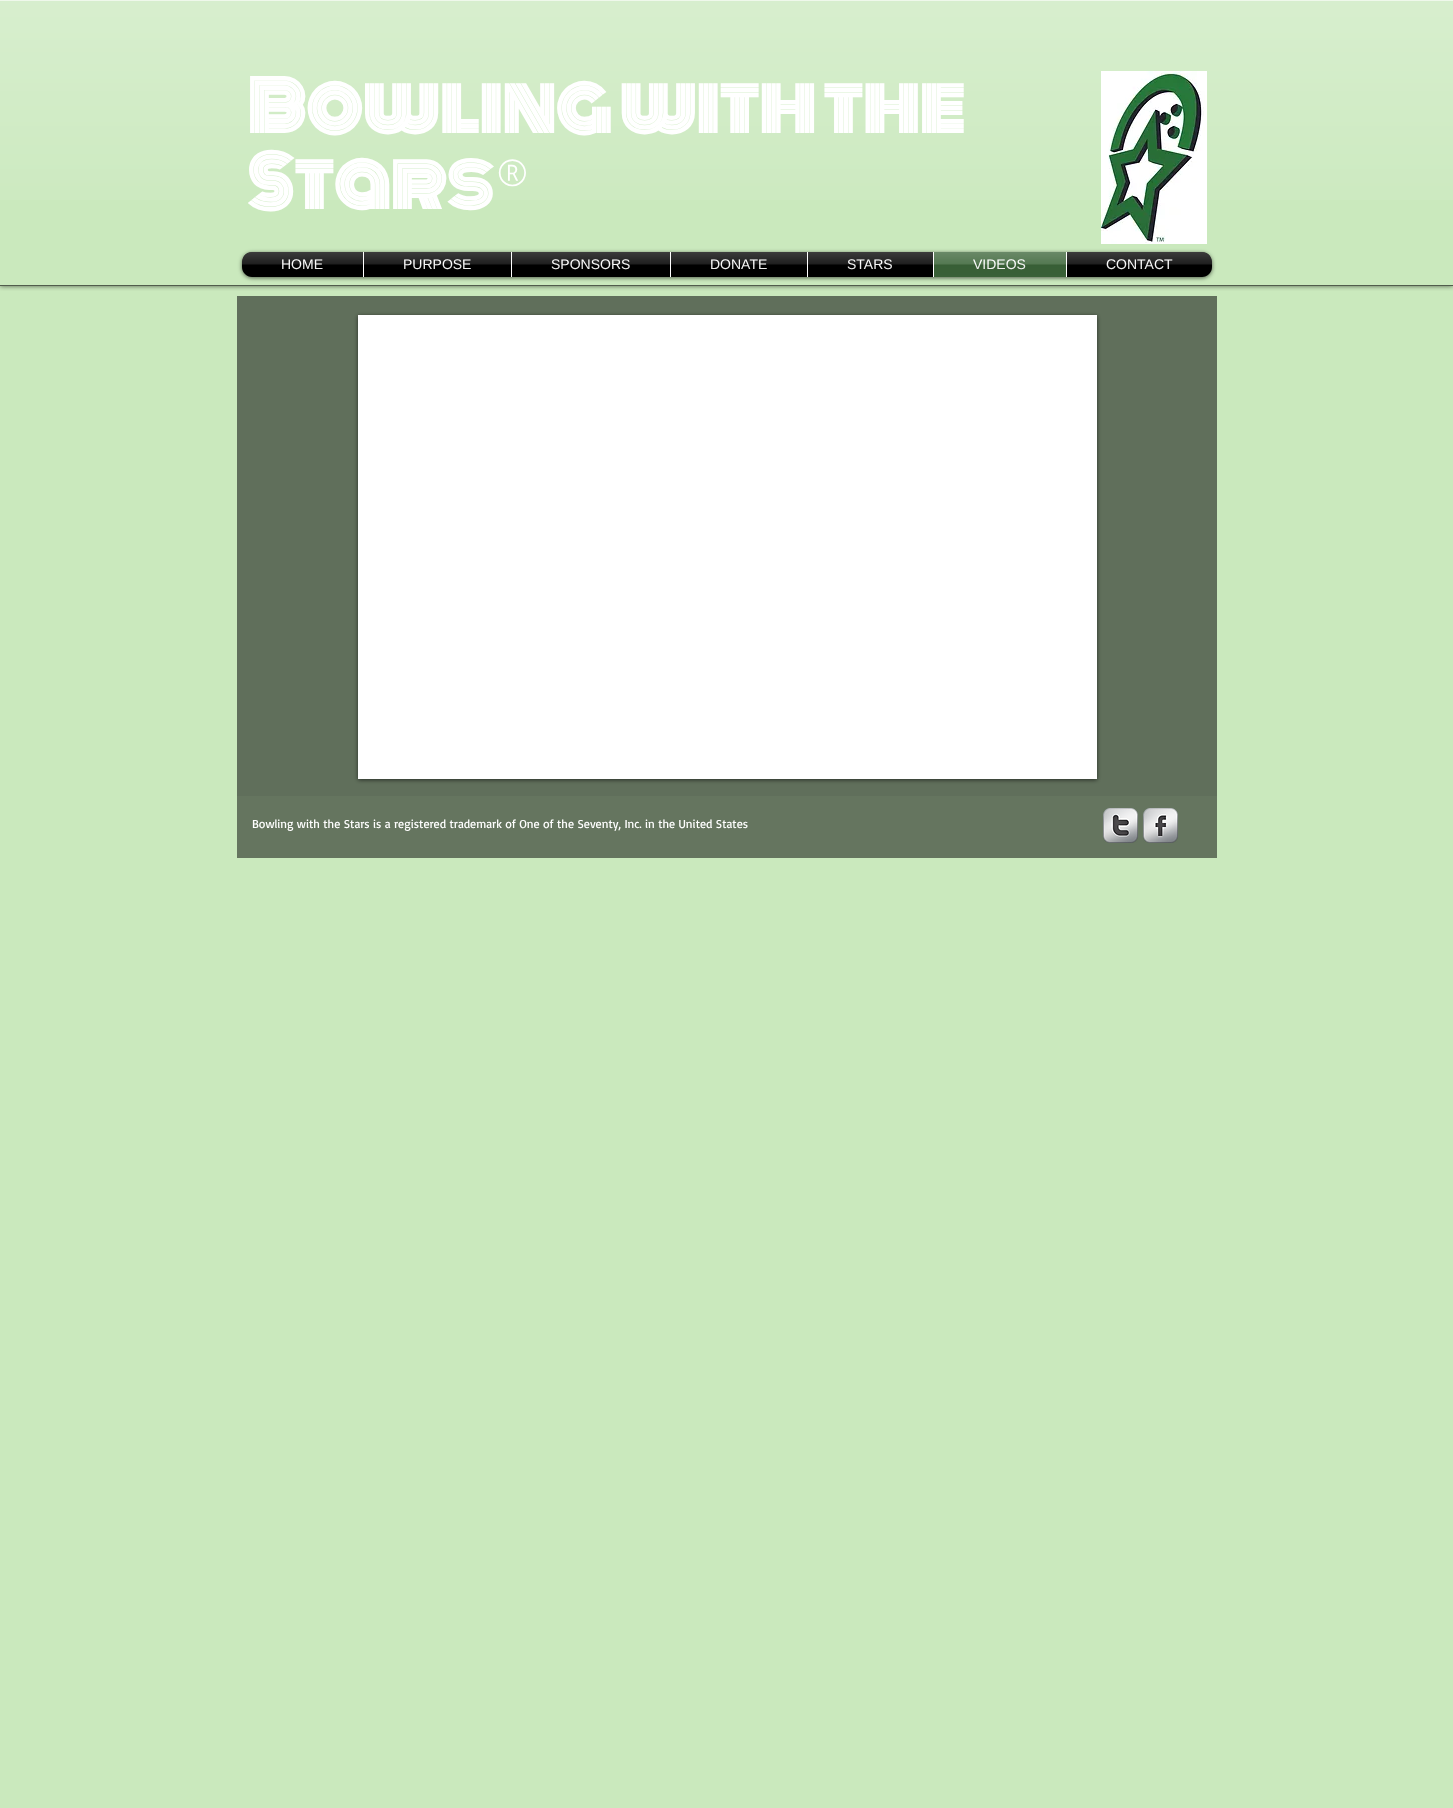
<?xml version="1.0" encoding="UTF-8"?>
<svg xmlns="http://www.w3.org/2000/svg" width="1453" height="1808">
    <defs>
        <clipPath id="clip1"><rect x="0" y="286" width="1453" height="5"/></clipPath>
        <filter id="blur1" x="-50%" y="-200%" width="200%" height="500%"><feGaussianBlur stdDeviation="2.5"/></filter>
        <filter id="blur2" x="-50%" y="-200%" width="200%" height="500%"><feGaussianBlur stdDeviation="2"/></filter>
    </defs>
    <rect width="100%" height="100%" fill="#CAE9BD"/>
    <g clip-path="url(#clip1)">
        <rect x="0" y="0" width="1453" height="286" fill="#000000" fill-opacity="0.6" filter="url(#blur1)"/>
    </g>
    <image x="0" y="1" width="1453" height="199" href="img_01.png"/>
    <rect x="0" y="285" width="1453" height="1" fill="#515D4C"/>
    <rect x="0" y="0" width="1453" height="1" fill="#EFF8EB"/>
    <text font-family="Monoton" font-size="68" font-weight="700" fill="#FFFFFF">
        <tspan x="247" y="133">Bowling with the</tspan>
        <tspan x="247" y="209">Stars</tspan>
    </text>
    <image x="1101" y="71" width="106" height="173" href="img_02.png"/>
    <text x="497" y="186" font-family="Open Sans Condensed" font-size="37" font-weight="300" fill="#FFFFFF">®</text>
    <rect x="242" y="253" width="970" height="25" rx="10" fill="#000000" fill-opacity="0.6" filter="url(#blur2)"/>
    <image x="242" y="252" width="970" height="10" href="img_03.png"/>
    <path d="M 252 252 H 363 V 277 H 252 C 246.5 277 242 272.5 242 267 V 262 C 242 256.5 246.5 252 252 252 Z" fill="#000000"/>
    <text x="281" y="269" font-family="Liberation Sans" font-size="14" fill="#FFFFFF">HOME</text>
    <image x="242" y="252" width="121" height="17" href="img_04.png"/>
    <rect x="364" y="252" width="147" height="25" fill="#000000"/>
    <rect x="363" y="252" width="1" height="25" fill="#FFFFFF"/>
    <text x="403" y="269" font-family="Liberation Sans" font-size="14" fill="#FFFFFF">PURPOSE</text>
    <image x="364" y="252" width="147" height="17" href="img_05.png"/>
    <rect x="512" y="252" width="158" height="25" fill="#000000"/>
    <rect x="511" y="252" width="1" height="25" fill="#FFFFFF"/>
    <text x="551" y="269" font-family="Liberation Sans" font-size="14" fill="#FFFFFF">SPONSORS</text>
    <image x="512" y="252" width="158" height="17" href="img_06.png"/>
    <rect x="671" y="252" width="136" height="25" fill="#000000"/>
    <rect x="670" y="252" width="1" height="25" fill="#FFFFFF"/>
    <text x="710" y="269" font-family="Liberation Sans" font-size="14" fill="#FFFFFF">DONATE</text>
    <image x="671" y="252" width="136" height="17" href="img_07.png"/>
    <rect x="808" y="252" width="125" height="25" fill="#000000"/>
    <rect x="807" y="252" width="1" height="25" fill="#FFFFFF"/>
    <text x="847" y="269" font-family="Liberation Sans" font-size="14" fill="#FFFFFF">STARS</text>
    <image x="808" y="252" width="125" height="17" href="img_08.png"/>
    <rect x="934" y="252" width="132" height="25" fill="#3D663A"/>
    <rect x="933" y="252" width="1" height="25" fill="#FFFFFF"/>
    <text x="973" y="269" font-family="Liberation Sans" font-size="14" fill="#FFFFFF">VIDEOS</text>
    <image x="934" y="252" width="132" height="25" href="img_09.png"/>
    <path d="M 1066 252 H 1202 C 1207.5 252 1212 256.5 1212 262 V 267 C 1212 272.5 1207.5 277 1202 277 H 1066 Z" fill="#000000"/>
    <rect x="1066" y="252" width="1" height="25" fill="#FFFFFF"/>
    <text x="1106" y="269" font-family="Liberation Sans" font-size="14" fill="#FFFFFF">CONTACT</text>
    <image x="1067" y="252" width="145" height="17" href="img_10.png"/>
    <rect x="237" y="296" width="980" height="500" fill="#606F5B"/>
    <rect x="358" y="316" width="739" height="464" fill="#000000" fill-opacity="0.6" filter="url(#blur2)"/>
    <rect x="358" y="315" width="739" height="464" fill="#FFFFFF"/>
    <rect x="237" y="796" width="980" height="62" fill="#65755F"/>
    <text x="252" y="828" font-family="Basic" font-size="12" fill="#FFFFFF">Bowling with the Stars is a registered trademark of One of the Seventy, Inc. in the United States</text>
    <image x="1103" y="808" width="35" height="35" href="img_11.png"/>
    <image x="1143" y="808" width="35" height="35" href="img_12.png"/>
</svg>
